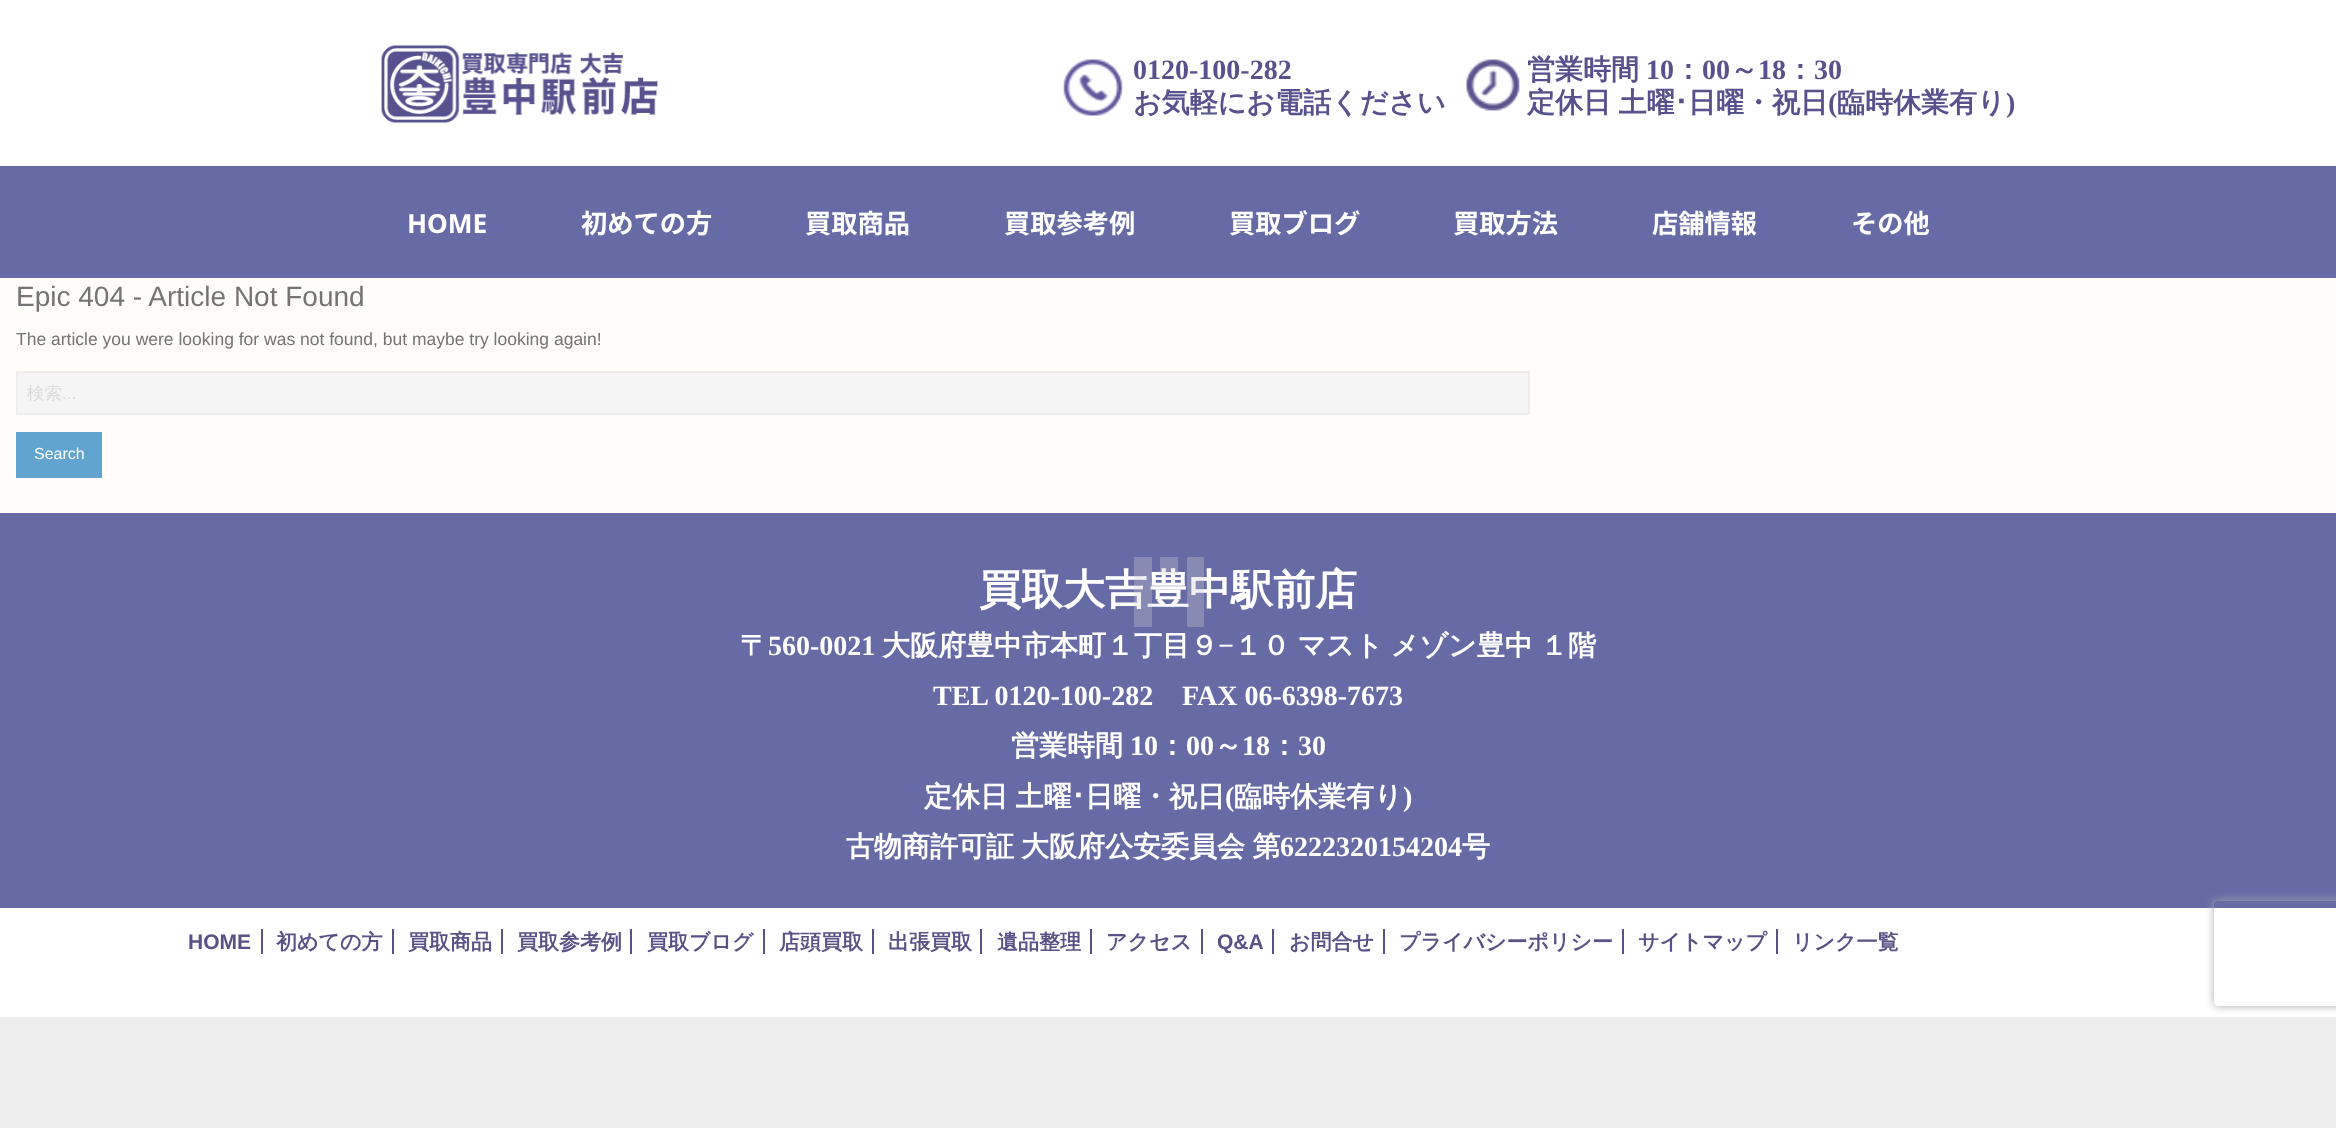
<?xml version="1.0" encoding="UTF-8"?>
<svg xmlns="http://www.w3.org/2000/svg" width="2336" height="1128">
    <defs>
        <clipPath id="clip1"><path d="M 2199 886 H 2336 V 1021 H 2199 Z M 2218 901 H 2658 C 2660 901 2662 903 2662 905 V 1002 C 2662 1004 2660 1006 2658 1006 H 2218 C 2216 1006 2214 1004 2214 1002 V 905 C 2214 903 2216 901 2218 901 Z" clip-rule="evenodd"/></clipPath>
        <filter id="blur1" x="-50%" y="-200%" width="200%" height="500%"><feGaussianBlur stdDeviation="4.5"/></filter>
    </defs>
    <rect width="100%" height="100%" fill="#EDEDED"/>
    <rect x="0" y="0" width="2336" height="166" fill="#FFFFFF"/>
    <image x="381" y="45" width="277" height="78" href="img_01.png"/>
    <image x="1063" y="59" width="60" height="57" href="img_02.png"/>
    <text x="1133" y="79" font-family="Liberation Serif" font-size="28" font-weight="700" fill="#57528E">0120-100-282</text>
    <text x="1133" y="112" font-family="WenQuanYi Zen Hei" font-size="28" font-weight="700" fill="#57528E">お気軽にお電話ください</text>
    <image x="1466" y="59" width="54" height="52" href="img_03.png"/>
    <text x="1527" y="79" font-family="WenQuanYi Zen Hei" font-size="28" font-weight="700" fill="#57528E">営業時間</text>
    <text x="1646" y="79" font-family="Liberation Serif" font-size="28" font-weight="700" fill="#57528E">10</text>
    <text x="1674" y="79" font-family="WenQuanYi Zen Hei" font-size="28" font-weight="700" fill="#57528E">：</text>
    <text x="1702" y="79" font-family="Liberation Serif" font-size="28" font-weight="700" fill="#57528E">00</text>
    <text x="1730" y="79" font-family="WenQuanYi Zen Hei" font-size="28" font-weight="700" fill="#57528E">～</text>
    <text x="1758" y="79" font-family="Liberation Serif" font-size="28" font-weight="700" fill="#57528E">18</text>
    <text x="1786" y="79" font-family="WenQuanYi Zen Hei" font-size="28" font-weight="700" fill="#57528E">：</text>
    <text x="1814" y="79" font-family="Liberation Serif" font-size="28" font-weight="700" fill="#57528E">30</text>
    <text x="1527" y="112" word-spacing="-1" font-family="WenQuanYi Zen Hei" font-size="28" font-weight="700" fill="#57528E">定休日 土曜</text>
    <text x="1674" y="112" font-family="IPAPGothic" font-size="28" font-weight="700" fill="#57528E">･</text>
    <text x="1688" y="112" font-family="WenQuanYi Zen Hei" font-size="28" font-weight="700" fill="#57528E">日曜・祝日</text>
    <text x="1828" y="112" font-family="Liberation Serif" font-size="28" font-weight="700" fill="#57528E">(</text>
    <text x="1837" y="112" font-family="WenQuanYi Zen Hei" font-size="28" font-weight="700" fill="#57528E">臨時休業有り</text>
    <text x="2006" y="112" font-family="Liberation Serif" font-size="28" font-weight="700" fill="#57528E">)</text>
    <rect x="0" y="166" width="2336" height="112" fill="#666BA6"/>
    <text x="407" y="233" font-family="Noto Sans" font-size="26.25" font-weight="700" fill="#FFFFFF">HOME</text>
    <text x="581" y="233" font-family="Noto Sans CJK JP" font-size="26.25" font-weight="700" fill="#FFFFFF">初めての方</text>
    <text x="805" y="233" font-family="Noto Sans CJK JP" font-size="26.25" font-weight="700" fill="#FFFFFF">買取商品</text>
    <text x="1004" y="233" font-family="Noto Sans CJK JP" font-size="26.25" font-weight="700" fill="#FFFFFF">買取参考例</text>
    <text x="1229" y="233" font-family="Noto Sans CJK JP" font-size="26.25" font-weight="700" fill="#FFFFFF">買取ブログ</text>
    <text x="1453" y="233" font-family="Noto Sans CJK JP" font-size="26.25" font-weight="700" fill="#FFFFFF">買取方法</text>
    <text x="1652" y="233" font-family="Noto Sans CJK JP" font-size="26.25" font-weight="700" fill="#FFFFFF">店舗情報</text>
    <text x="1851" y="233" font-family="Noto Sans CJK JP" font-size="26.25" font-weight="700" fill="#FFFFFF">その他</text>
    <rect x="0" y="278" width="2336" height="235" fill="#FFFCFA"/>
    <text x="16" y="306" font-family="Liberation Sans" font-size="28" fill="#747474">Epic 404 - Article Not Found</text>
    <text x="16" y="345" font-family="Liberation Sans" font-size="17.5" fill="#747474">The article you were looking for was not found, but maybe try looking again!</text>
    <rect x="17" y="372" width="1512" height="42" fill="#F5F5F5" stroke="#EDEDED" stroke-width="2"/>
    <text x="27" y="399" font-family="WenQuanYi Zen Hei" font-size="17.5" font-weight="500" fill="#DBDBDB">検索</text>
    <text x="62" y="399" font-family="Liberation Sans" font-size="17.5" fill="#DBDBDB">...</text>
    <rect x="16" y="432" width="86" height="46" fill="#61A4D0"/>
    <text x="34" y="459" font-family="Liberation Sans" font-size="16" fill="#FFFFFF">Search</text>
    <rect x="0" y="513" width="2336" height="395" fill="#666BA6"/>
    <text x="979" y="604" font-family="WenQuanYi Zen Hei" font-size="42" font-weight="700" fill="#FFFFFF">買取大吉豊中駅前店</text>
    <text x="740" y="655" font-family="WenQuanYi Zen Hei" font-size="28" font-weight="700" fill="#FFFFFF">〒</text>
    <text x="768" y="655" font-family="Liberation Serif" font-size="28" font-weight="700" fill="#FFFFFF">560-0021</text>
    <text x="882" y="655" font-family="WenQuanYi Zen Hei" font-size="28" font-weight="700" fill="#FFFFFF">大阪府豊中市本町１丁目９</text>
    <text x="1218" y="655" font-family="Liberation Serif" font-size="28" font-weight="700" fill="#FFFFFF">−</text>
    <text x="1234" y="655" word-spacing="-1" font-family="WenQuanYi Zen Hei" font-size="28" font-weight="700" fill="#FFFFFF">１０ マスト メゾン豊中 １階</text>
    <text x="933" y="705" font-family="Liberation Serif" font-size="28" font-weight="700" fill="#FFFFFF">TEL 0120-100-282</text>
    <text x="1182" y="705" font-family="Liberation Serif" font-size="28" font-weight="700" fill="#FFFFFF">FAX 06-6398-7673</text>
    <text x="1011" y="755" font-family="WenQuanYi Zen Hei" font-size="28" font-weight="700" fill="#FFFFFF">営業時間</text>
    <text x="1130" y="755" font-family="Liberation Serif" font-size="28" font-weight="700" fill="#FFFFFF">10</text>
    <text x="1158" y="755" font-family="WenQuanYi Zen Hei" font-size="28" font-weight="700" fill="#FFFFFF">：</text>
    <text x="1186" y="755" font-family="Liberation Serif" font-size="28" font-weight="700" fill="#FFFFFF">00</text>
    <text x="1214" y="755" font-family="WenQuanYi Zen Hei" font-size="28" font-weight="700" fill="#FFFFFF">～</text>
    <text x="1242" y="755" font-family="Liberation Serif" font-size="28" font-weight="700" fill="#FFFFFF">18</text>
    <text x="1270" y="755" font-family="WenQuanYi Zen Hei" font-size="28" font-weight="700" fill="#FFFFFF">：</text>
    <text x="1298" y="755" font-family="Liberation Serif" font-size="28" font-weight="700" fill="#FFFFFF">30</text>
    <text x="924" y="806" word-spacing="-1" font-family="WenQuanYi Zen Hei" font-size="28" font-weight="700" fill="#FFFFFF">定休日 土曜</text>
    <text x="1071" y="806" font-family="IPAPGothic" font-size="28" font-weight="700" fill="#FFFFFF">･</text>
    <text x="1085" y="806" font-family="WenQuanYi Zen Hei" font-size="28" font-weight="700" fill="#FFFFFF">日曜・祝日</text>
    <text x="1225" y="806" font-family="Liberation Serif" font-size="28" font-weight="700" fill="#FFFFFF">(</text>
    <text x="1234" y="806" font-family="WenQuanYi Zen Hei" font-size="28" font-weight="700" fill="#FFFFFF">臨時休業有り</text>
    <text x="1403" y="806" font-family="Liberation Serif" font-size="28" font-weight="700" fill="#FFFFFF">)</text>
    <text x="846" y="856" font-family="WenQuanYi Zen Hei" font-size="28" font-weight="700" fill="#FFFFFF">古物商許可証</text>
    <text x="1021" y="856" word-spacing="-1" font-family="WenQuanYi Zen Hei" font-size="28" font-weight="700" fill="#FFFFFF">大阪府公安委員会 第</text>
    <text x="1280" y="856" font-family="Liberation Serif" font-size="28" font-weight="700" fill="#FFFFFF">6222320154204</text>
    <text x="1462" y="856" font-family="WenQuanYi Zen Hei" font-size="28" font-weight="700" fill="#FFFFFF">号</text>
    <rect x="0" y="908" width="2336" height="109" fill="#FFFFFF"/>
    <text x="188" y="949" font-family="Liberation Sans" font-size="21" font-weight="700" fill="#5A5287">HOME</text>
    <rect x="261" y="929" width="2" height="25" fill="#5A5287"/>
    <text x="276" y="949" font-family="WenQuanYi Zen Hei" font-size="21" font-weight="700" fill="#5A5287">初めての方</text>
    <rect x="392" y="929" width="2" height="25" fill="#5A5287"/>
    <text x="408" y="949" font-family="WenQuanYi Zen Hei" font-size="21" font-weight="700" fill="#5A5287">買取商品</text>
    <rect x="501" y="929" width="2" height="25" fill="#5A5287"/>
    <text x="517" y="949" font-family="WenQuanYi Zen Hei" font-size="21" font-weight="700" fill="#5A5287">買取参考例</text>
    <rect x="630" y="929" width="2" height="25" fill="#5A5287"/>
    <text x="647" y="949" font-family="WenQuanYi Zen Hei" font-size="21" font-weight="700" fill="#5A5287">買取ブログ</text>
    <rect x="763" y="929" width="2" height="25" fill="#5A5287"/>
    <text x="779" y="949" font-family="WenQuanYi Zen Hei" font-size="21" font-weight="700" fill="#5A5287">店頭買取</text>
    <rect x="872" y="929" width="2" height="25" fill="#5A5287"/>
    <text x="888" y="949" font-family="WenQuanYi Zen Hei" font-size="21" font-weight="700" fill="#5A5287">出張買取</text>
    <rect x="980" y="929" width="2" height="25" fill="#5A5287"/>
    <text x="997" y="949" font-family="WenQuanYi Zen Hei" font-size="21" font-weight="700" fill="#5A5287">遺品整理</text>
    <rect x="1090" y="929" width="2" height="25" fill="#5A5287"/>
    <text x="1106" y="949" font-family="WenQuanYi Zen Hei" font-size="21" font-weight="700" fill="#5A5287">アクセス</text>
    <rect x="1201" y="929" width="2" height="25" fill="#5A5287"/>
    <text x="1217" y="949" font-family="Liberation Sans" font-size="21" font-weight="700" fill="#5A5287">Q&amp;A</text>
    <rect x="1272" y="929" width="2" height="25" fill="#5A5287"/>
    <text x="1289" y="949" font-family="WenQuanYi Zen Hei" font-size="21" font-weight="700" fill="#5A5287">お問合せ</text>
    <rect x="1383" y="929" width="2" height="25" fill="#5A5287"/>
    <text x="1399" y="949" font-family="WenQuanYi Zen Hei" font-size="21" font-weight="700" fill="#5A5287">プライバシーポリシー</text>
    <rect x="1622" y="929" width="2" height="25" fill="#5A5287"/>
    <text x="1638" y="949" font-family="WenQuanYi Zen Hei" font-size="21" font-weight="700" fill="#5A5287">サイトマップ</text>
    <rect x="1776" y="929" width="2" height="25" fill="#5A5287"/>
    <text x="1792" y="949" font-family="WenQuanYi Zen Hei" font-size="21" font-weight="700" fill="#5A5287">リンク一覧</text>
    <rect x="1160" y="557" width="18" height="17" fill="#CCCCCC" fill-opacity="0.32"/>
    <rect x="1134" y="557" width="18" height="70" fill="#CCCCCC" fill-opacity="0.32"/>
    <rect x="1187" y="557" width="17" height="70" fill="#CCCCCC" fill-opacity="0.32"/>
    <g clip-path="url(#clip1)">
        <rect x="2214" y="901" width="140" height="105" rx="4" fill="#A9A9A9" filter="url(#blur1)"/>
    </g>
</svg>
